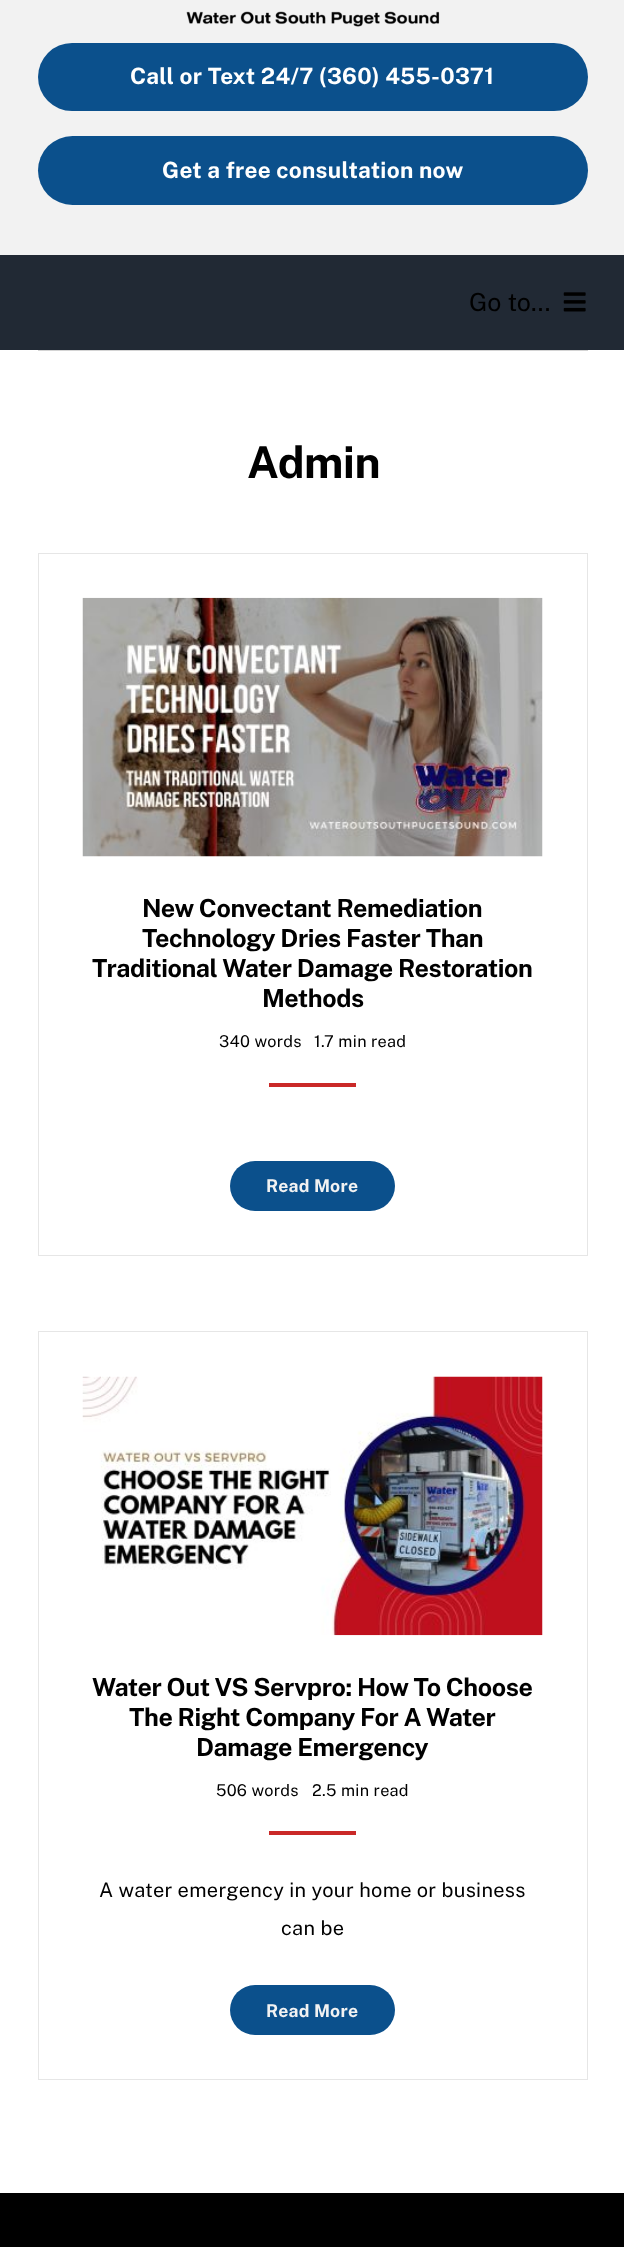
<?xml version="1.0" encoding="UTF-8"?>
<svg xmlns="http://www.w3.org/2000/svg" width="624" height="2247">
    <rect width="100%" height="100%" fill="#FFFFFF"/>
    <rect x="0" y="0" width="624" height="255" fill="#F2F2F2"/>
    <image x="186" y="11" width="254" height="16" href="img_01.png"/>
    <rect x="38" y="43" width="550" height="68" rx="34" fill="#0B508C"/>
    <text x="130" y="84" font-family="Public Sans" font-size="22.5" font-weight="700" letter-spacing="0.3" fill="#FFFFFF">Call or Text 24/7 (360) 455-0371</text>
    <rect x="38" y="136" width="550" height="69" rx="34.5" fill="#0B508C"/>
    <text x="162" y="178" font-family="Public Sans" font-size="22.5" font-weight="700" letter-spacing="0.3" fill="#FFFFFF">Get a free consultation now</text>
    <rect x="0" y="255" width="624" height="95" fill="#212934"/>
    <text x="469" y="311" font-family="Public Sans" font-size="25" fill="#000000">Go to...</text>
    <image x="563" y="292" width="23" height="20" href="img_02.png"/>
    <rect x="38" y="350" width="550" height="1" fill="#D4D4D4"/>
    <text x="247" y="478" font-family="Public Sans" font-size="44" font-weight="700" letter-spacing="-0.5" fill="#000000">Admin</text>
    <rect x="38.5" y="553.5" width="549" height="702" fill="none" stroke="#E6E6E6"/>
    <image x="82" y="597" width="461" height="260" href="img_03.png"/>
    <text font-family="Public Sans" font-size="25" font-weight="700" letter-spacing="-0.4" fill="#000000">
        <tspan x="142" y="917">New Convectant Remediation</tspan>
        <tspan x="142" y="947">Technology Dries Faster Than</tspan>
    </text>
    <text x="92" y="977" font-family="Public Sans" font-size="25" font-weight="700" letter-spacing="-0.4" fill="#000000">Traditional Water Damage Restoration</text>
    <text x="262" y="1007" font-family="Public Sans" font-size="25" font-weight="700" letter-spacing="-0.4" fill="#000000">Methods</text>
    <text x="219" y="1047" font-family="Public Sans" font-size="16.25" letter-spacing="0.3" fill="#000000">340 words</text>
    <text x="314" y="1047" font-family="Public Sans" font-size="16.25" letter-spacing="0.3" fill="#000000">1.7 min read</text>
    <rect x="269" y="1083" width="87" height="4" fill="#CA2928"/>
    <rect x="230" y="1161" width="165" height="50" rx="25" fill="#0B508C"/>
    <text x="266" y="1192" font-family="Public Sans" font-size="17.5" font-weight="700" letter-spacing="0.3" fill="#F2F2F2">Read More</text>
    <rect x="38.5" y="1331.5" width="549" height="748" fill="none" stroke="#E6E6E6"/>
    <image x="82" y="1376" width="461" height="260" href="img_04.png"/>
    <text x="92" y="1696" font-family="Public Sans" font-size="25" font-weight="700" letter-spacing="-0.4" fill="#000000">Water Out VS Servpro: How To Choose</text>
    <text x="129" y="1726" font-family="Public Sans" font-size="25" font-weight="700" letter-spacing="-0.4" fill="#000000">The Right Company For A Water</text>
    <text x="196" y="1756" font-family="Public Sans" font-size="25" font-weight="700" letter-spacing="-0.4" fill="#000000">Damage Emergency</text>
    <text x="216" y="1796" font-family="Public Sans" font-size="16.25" letter-spacing="0.3" fill="#000000">506 words</text>
    <text x="312" y="1796" font-family="Public Sans" font-size="16.25" letter-spacing="0.3" fill="#000000">2.5 min read</text>
    <rect x="269" y="1831" width="87" height="4" fill="#CA2928"/>
    <text x="99" y="1897" font-family="Public Sans" font-size="20" letter-spacing="0.3" fill="#000000">A water emergency in your home or business</text>
    <text x="281" y="1935" font-family="Public Sans" font-size="20" letter-spacing="0.3" fill="#000000">can be</text>
    <rect x="230" y="1985" width="165" height="50" rx="25" fill="#0B508C"/>
    <text x="266" y="2017" font-family="Public Sans" font-size="17.5" font-weight="700" letter-spacing="0.3" fill="#F2F2F2">Read More</text>
    <rect x="0" y="2193" width="624" height="54" fill="#000000"/>
</svg>
